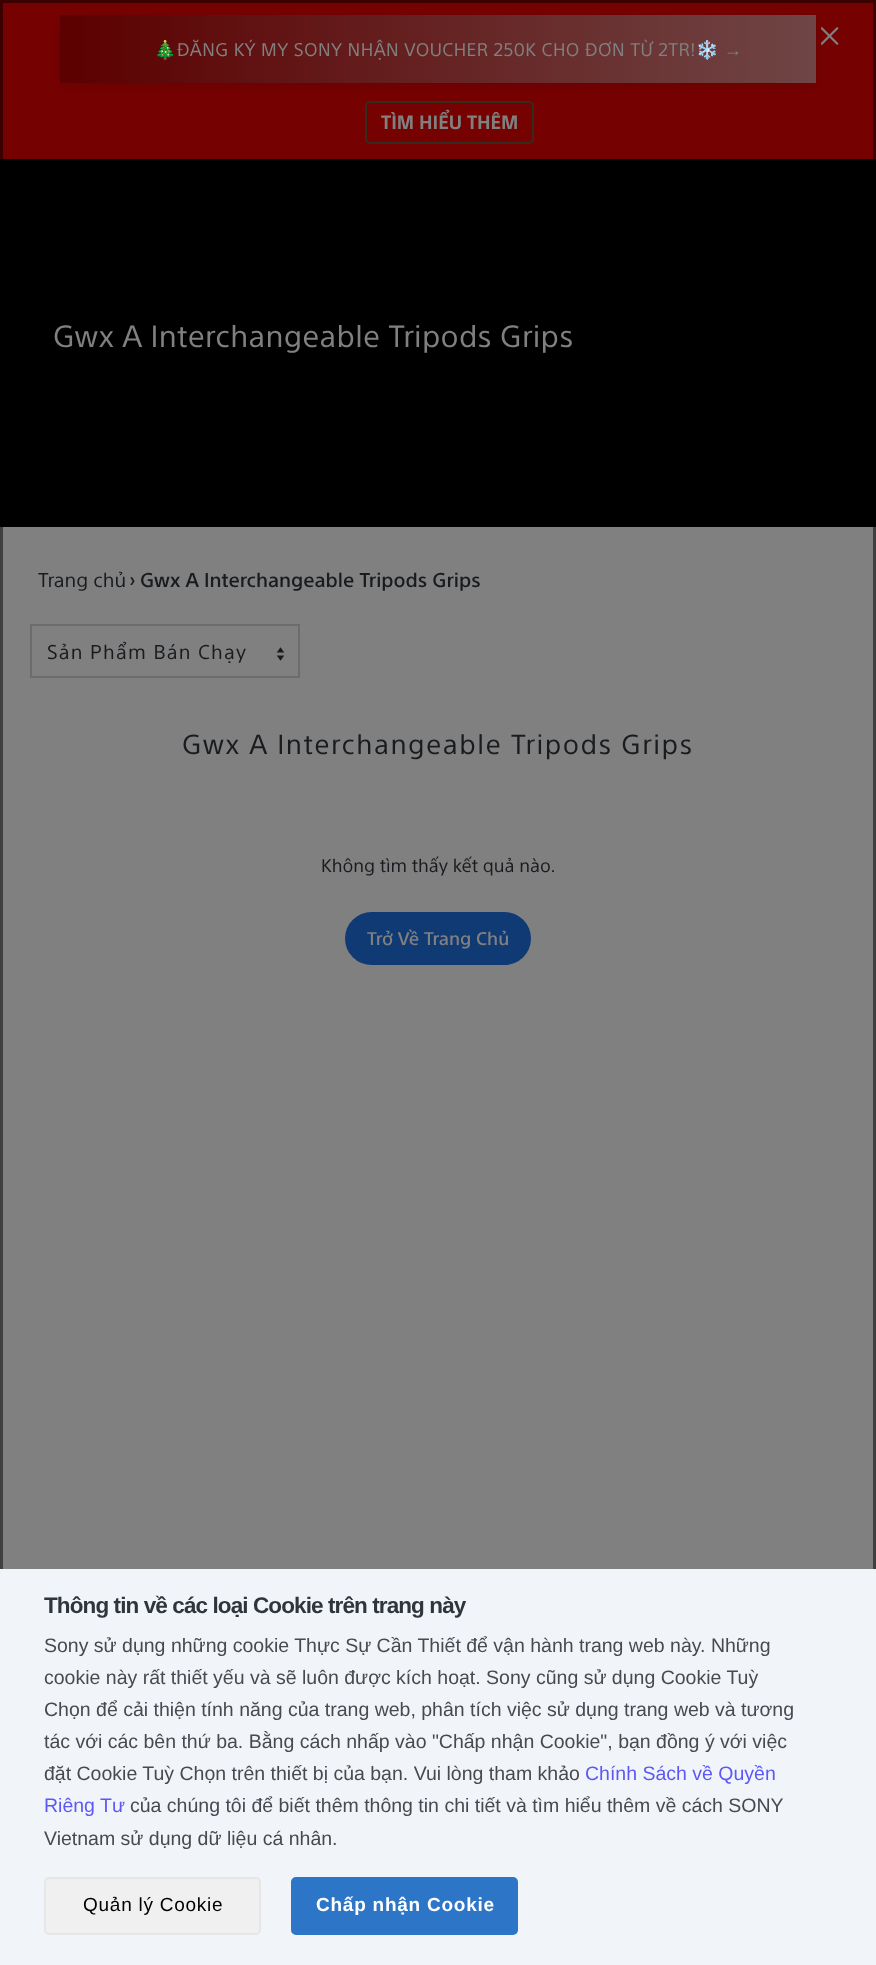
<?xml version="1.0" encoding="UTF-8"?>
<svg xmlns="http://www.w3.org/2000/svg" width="876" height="1965">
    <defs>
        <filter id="blur1" x="-50%" y="-200%" width="200%" height="500%"><feGaussianBlur stdDeviation="6"/></filter>
        <linearGradient id="g1" gradientUnits="userSpaceOnUse" x1="60" y1="49" x2="816" y2="49"><stop offset="0" stop-color="#5C0000"/><stop offset="1" stop-color="#6F4545"/></linearGradient>
    </defs>
    <rect width="100%" height="100%" fill="#808080"/>
    <rect x="0" y="0" width="876" height="159" fill="#760101"/>
    <rect x="60" y="20" width="756" height="67" fill="#000000" fill-opacity="0.1" filter="url(#blur1)"/>
    <image x="821" y="27" width="18" height="18" href="img_01.png"/>
    <rect x="60" y="15" width="756" height="68" fill="url(#g1)"/>
    <text x="154" y="56" font-family="Noto Color Emoji" font-size="18" letter-spacing="0.45" fill="#808080">🎄</text>
    <text x="177" y="56" font-family="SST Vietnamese" font-size="18" letter-spacing="0.45" fill="#808080">ĐĂNG KÝ MY SONY NHẬN VOUCHER 250K CHO ĐƠN TỪ 2TR!</text>
    <text x="696" y="56" font-family="Noto Color Emoji" font-size="18" letter-spacing="0.45" fill="#808080">❄️</text>
    <text x="724" y="56" font-family="Liberation Serif" font-size="18" letter-spacing="0.45" fill="#808080">→</text>
    <rect x="366" y="102" width="167" height="41" rx="4" fill="none" stroke="#352B1E" stroke-width="2"/>
    <text x="381" y="129" font-family="SST Vietnamese" font-size="18.75" font-weight="700" fill="#808080">TÌM HIỂU THÊM</text>
    <rect x="0" y="159" width="876" height="368" fill="#000000"/>
    <text x="53" y="347" font-family="SST Vietnamese" font-size="30" letter-spacing="0.3" fill="#808080">Gwx A Interchangeable Tripods Grips</text>
    <text x="38" y="587" font-family="SST Vietnamese" font-size="19.5" fill="#181B1F">Trang chủ</text>
    <text x="129" y="587" font-family="SST Vietnamese" font-size="19.5" font-weight="500" fill="#181B1F">›</text>
    <text x="140" y="587" font-family="SST Vietnamese" font-size="19.5" font-weight="500" fill="#181B1F">Gwx A Interchangeable Tripods Grips</text>
    <rect x="31" y="625" width="268" height="52" fill="none" stroke="#6C6C6C" stroke-width="2"/>
    <text x="47" y="659" font-family="SST Vietnamese" font-size="19.5" letter-spacing="1.25" fill="#181B1F">Sản Phẩm Bán Chạy</text>
    <image x="276" y="647" width="9" height="14" href="img_02.png"/>
    <text x="182" y="754" font-family="SST Vietnamese" font-size="27" letter-spacing="1.5" fill="#181B1F">Gwx A Interchangeable Tripods Grips</text>
    <text x="321" y="872" font-family="SST Vietnamese" font-size="18" fill="#181B1F">Không tìm thấy kết quả nào.</text>
    <rect x="345" y="912" width="186" height="53" rx="26.5" fill="#0F3A74"/>
    <text x="367" y="945" font-family="SST Vietnamese" font-size="18" font-weight="500" fill="#808080">Trở Về Trang Chủ</text>
    <rect x="1.5" y="1.5" width="873" height="1962" fill="none" stroke="#000000" stroke-opacity="0.5" stroke-width="3"/>
    <rect x="0" y="1569" width="876" height="396" fill="#F1F5F9"/>
    <text x="44" y="1613" font-family="Liberation Sans" font-size="22.5" font-weight="700" letter-spacing="-0.9" fill="#2F353D">Thông tin về các loại Cookie trên trang này</text>
    <text font-family="Liberation Sans" font-size="19.5" fill="#494950">
        <tspan x="44" y="1652">Sony sử dụng những cookie Thực Sự Cần Thiết để vận hành trang web này. Những</tspan>
        <tspan x="44" y="1684">cookie này rất thiết yếu và sẽ luôn được kích hoạt. Sony cũng sử dụng Cookie Tuỳ</tspan>
        <tspan x="44" y="1716">Chọn để cải thiện tính năng của trang web, phân tích việc sử dụng trang web và tương</tspan>
        <tspan x="44" y="1748">tác với các bên thứ ba. Bằng cách nhấp vào "Chấp nhận Cookie", bạn đồng ý với việc</tspan>
        <tspan x="44" y="1780">đặt Cookie Tuỳ Chọn trên thiết bị của bạn. Vui lòng tham khảo</tspan>
    </text>
    <text x="585" y="1780" font-family="Liberation Sans" font-size="19.5" fill="#5D58F5">Chính Sách về Quyền</text>
    <text x="44" y="1812" font-family="Liberation Sans" font-size="19.5" fill="#5D58F5">Riêng Tư</text>
    <text x="130" y="1812" font-family="Liberation Sans" font-size="19.5" fill="#494950">của chúng tôi để biết thêm thông tin chi tiết và tìm hiểu thêm về cách SONY</text>
    <text x="44" y="1845" font-family="Liberation Sans" font-size="19.5" fill="#494950">Vietnam sử dụng dữ liệu cá nhân.</text>
    <rect x="45" y="1878" width="215" height="56" rx="4" fill="#F0F0F0" stroke="#E6E6E6" stroke-width="2"/>
    <text x="83" y="1911" font-family="Liberation Sans" font-size="19" letter-spacing="0.75" fill="#000000">Quản lý Cookie</text>
    <rect x="292" y="1878" width="225" height="56" rx="4" fill="#2D75C7" stroke="#2D75C7" stroke-width="2"/>
    <text x="316" y="1911" font-family="Liberation Sans" font-size="19" font-weight="700" letter-spacing="0.75" fill="#FFFFFF">Chấp nhận Cookie</text>
</svg>
